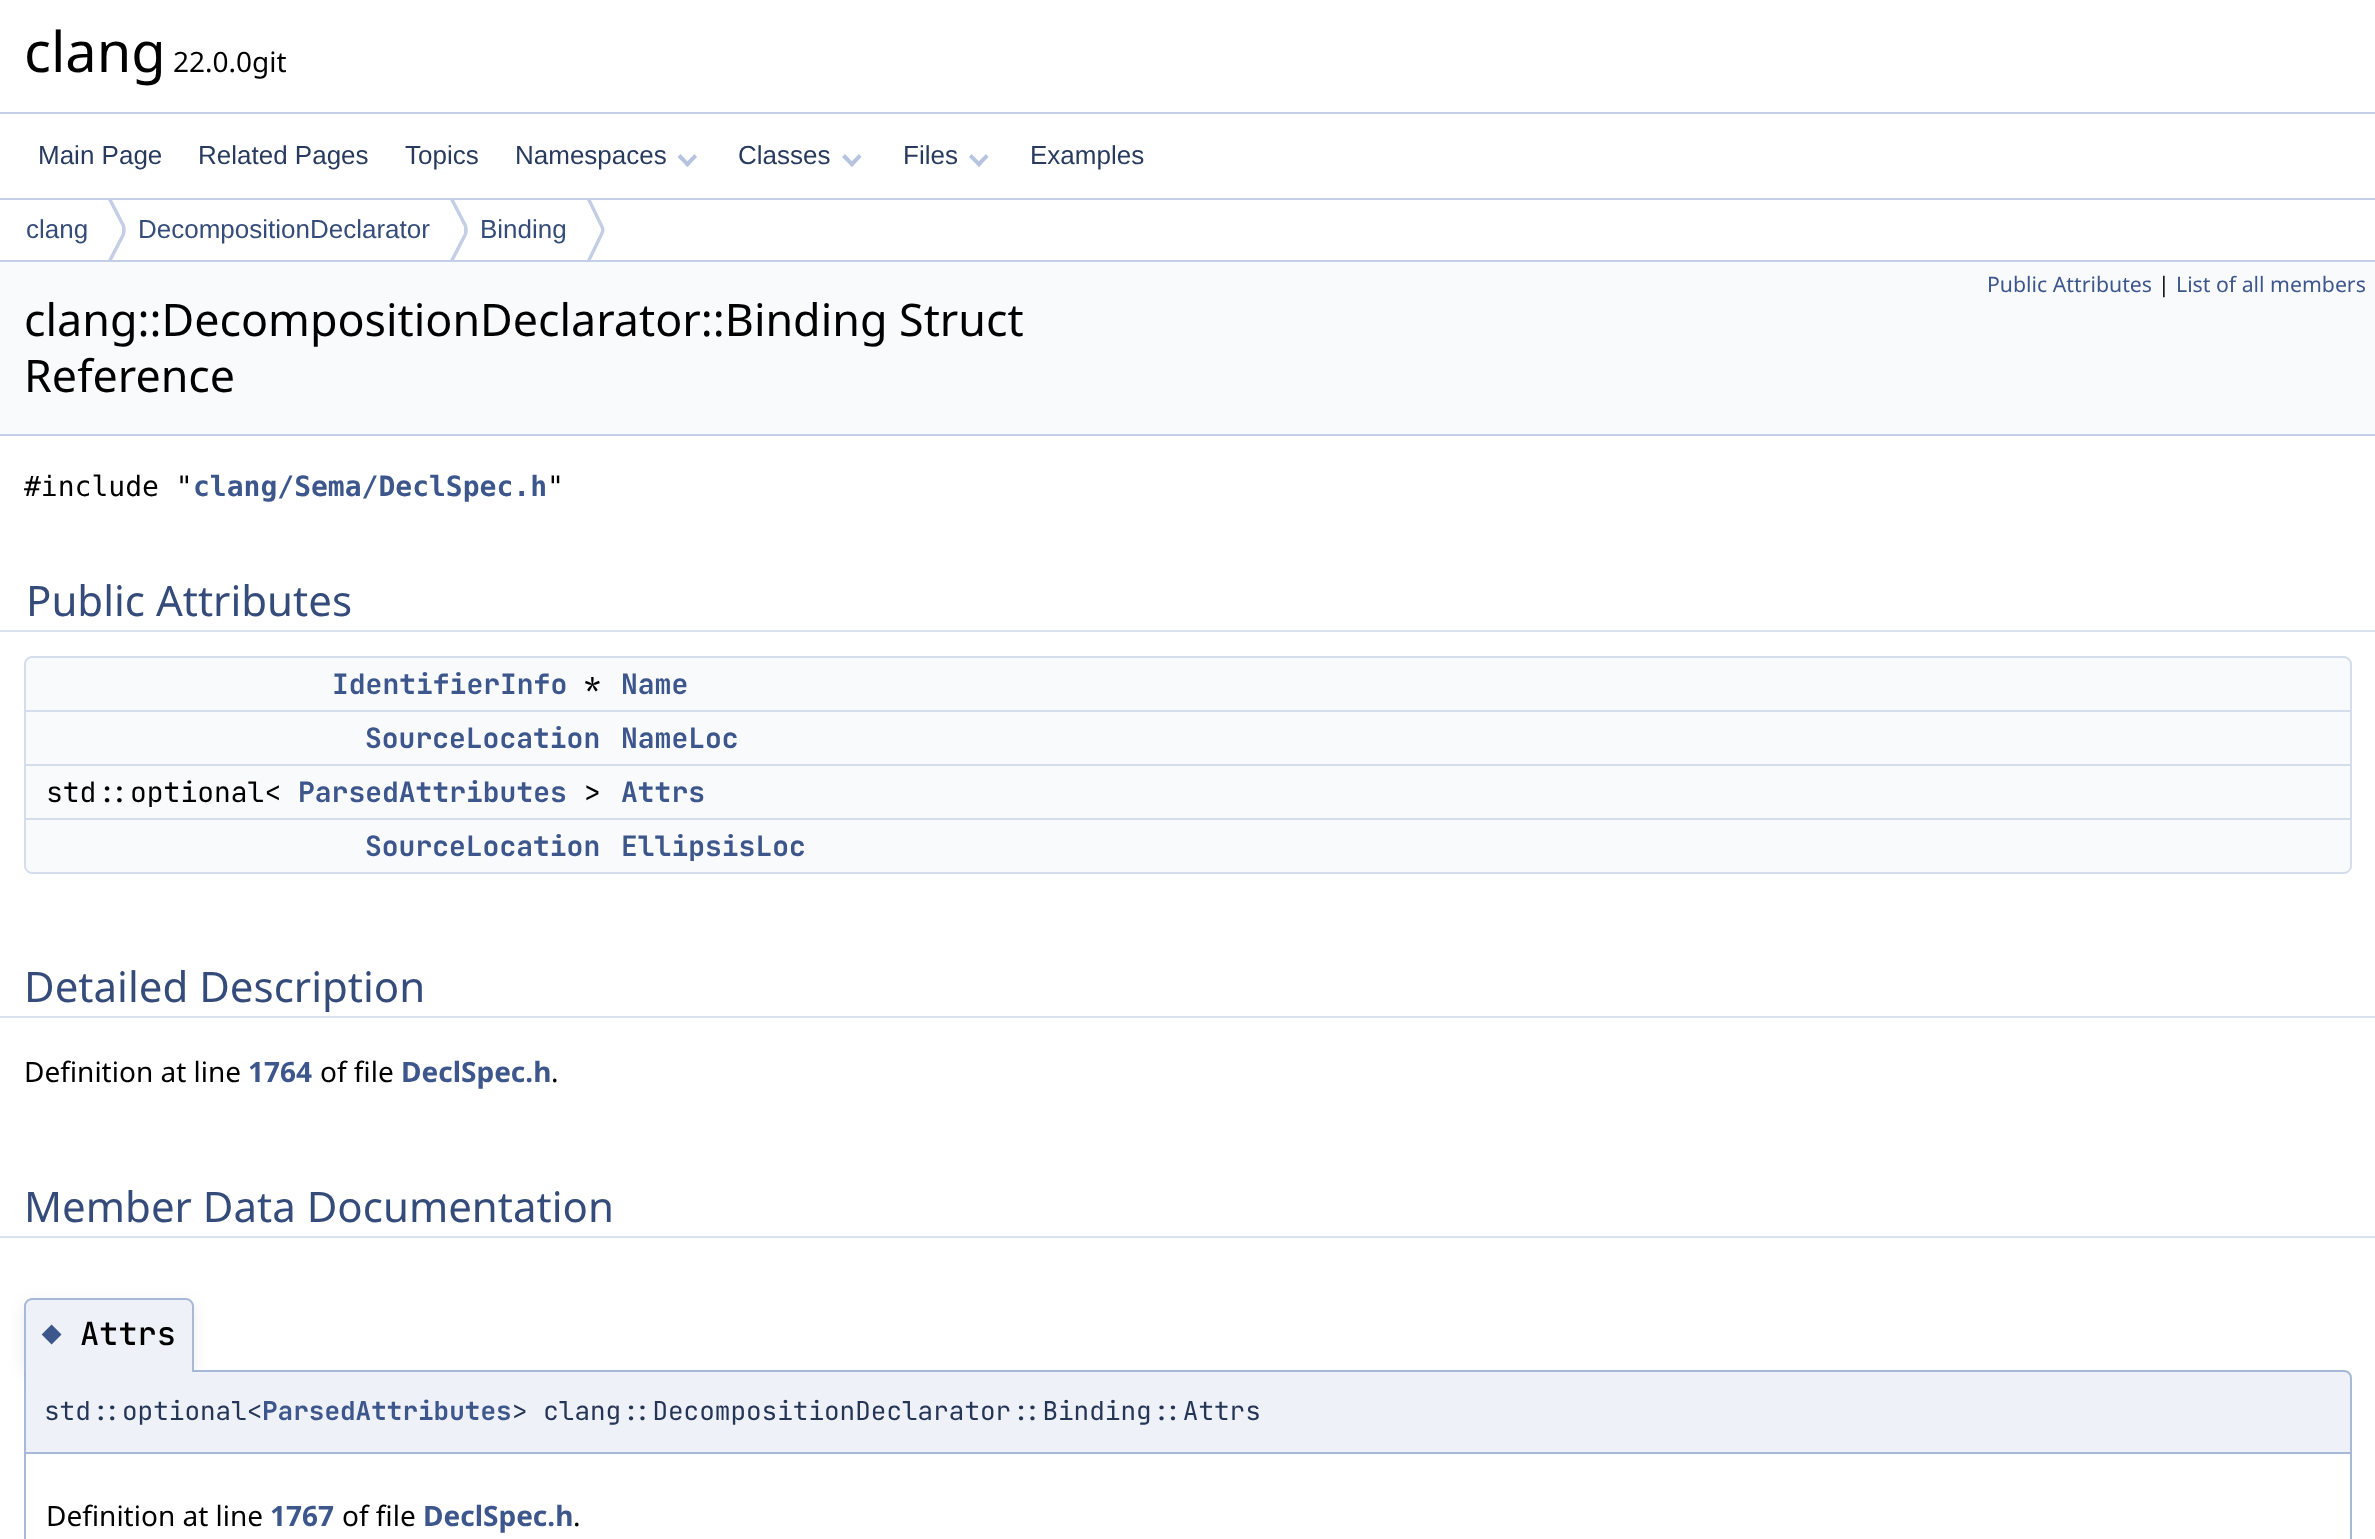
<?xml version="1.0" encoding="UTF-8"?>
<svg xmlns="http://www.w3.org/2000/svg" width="2375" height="1539">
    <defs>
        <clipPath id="clip1"><rect x="0" y="200" width="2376" height="60"/></clipPath>
        <filter id="blur1" x="-50%" y="-200%" width="200%" height="500%"><feGaussianBlur stdDeviation="8"/></filter>
    </defs>
    <rect width="100%" height="100%" fill="#FFFFFF"/>
    <rect x="0" y="112" width="2375" height="2" fill="#C4CFE5"/>
    <text x="24" y="72" font-family="Noto Sans" font-size="56" fill="#000000">clang</text>
    <text x="173" y="72" font-family="Noto Sans" font-size="28" fill="#000000">22.0.0git</text>
    <rect x="0" y="198" width="2375" height="2" fill="#C4CFE5"/>
    <text x="38" y="164" font-family="Liberation Sans" font-size="26" fill="#283A5D">Main Page</text>
    <text x="198" y="164" font-family="Liberation Sans" font-size="26" fill="#283A5D">Related Pages</text>
    <text x="405" y="164" font-family="Liberation Sans" font-size="26" fill="#283A5D">Topics</text>
    <text x="515" y="164" font-family="Liberation Sans" font-size="26" fill="#283A5D">Namespaces</text>
    <path d="M 694.5 154 L 697 157 L 687.5 167 L 684.5 164 Z" fill="#B6C4DF"/>
    <path d="M 680.5 154 L 690 164 L 687.5 167 L 677.5 157 Z" fill="#B6C4DF"/>
    <text x="738" y="164" font-family="Liberation Sans" font-size="26" fill="#283A5D">Classes</text>
    <path d="M 859 154 L 861.5 157 L 852 167 L 849 164 Z" fill="#B6C4DF"/>
    <path d="M 845 154 L 854.5 164 L 852 167 L 842 157 Z" fill="#B6C4DF"/>
    <text x="903" y="164" font-family="Liberation Sans" font-size="26" fill="#283A5D">Files</text>
    <path d="M 986 154 L 988.5 157 L 979 167 L 976 164 Z" fill="#B6C4DF"/>
    <path d="M 971.5 154 L 981.5 164 L 979 167 L 969 157 Z" fill="#B6C4DF"/>
    <text x="1030" y="164" font-family="Liberation Sans" font-size="26" fill="#283A5D">Examples</text>
    <rect x="0" y="260" width="2375" height="2" fill="#C4CFE5"/>
    <text x="26" y="238" font-family="Liberation Sans" font-size="26" fill="#354C7B">clang</text>
    <g clip-path="url(#clip1)">
        <path d="M 110 196 L 106 204 L 108 200 L 122 227 C 122 229 122 231 122 233 L 108 260 L 110 264 L 125 235 C 126 232 126 228 125 225 Z M 102 223 L 103 219 Z" fill="#C4CFE5" fill-rule="evenodd"/>
    </g>
    <path d="M 108 200 L 122 227 C 122 229 122 231 122 233 L 108 260 C 100 243 100 217 108 200 Z" fill="#FFFFFF"/>
    <text x="138" y="238" font-family="Liberation Sans" font-size="26" fill="#354C7B">DecompositionDeclarator</text>
    <g clip-path="url(#clip1)">
        <path d="M 452 196 L 450 200 L 464 227 C 464 229 464 231 464 233 L 450 260 L 452 264 L 467 235 C 468 232 468 228 467 225 Z" fill="#C4CFE5"/>
    </g>
    <path d="M 450 200 L 464 227 C 464 229 464 231 464 233 L 450 260 C 442 243 442 217 450 200 Z" fill="#FFFFFF"/>
    <text x="480" y="238" font-family="Liberation Sans" font-size="26" fill="#354C7B">Binding</text>
    <g clip-path="url(#clip1)">
        <path d="M 589 196 L 587 200 L 600 227 C 601 229 601 231 600 233 L 587 260 L 589 264 L 603 235 C 605 232 605 228 603 225 Z" fill="#C4CFE5"/>
    </g>
    <path d="M 587 200 L 600 227 C 601 229 601 231 600 233 L 587 260 C 579 243 579 217 587 200 Z" fill="#FFFFFF"/>
    <rect x="0" y="262" width="2375" height="172" fill="#F9FAFC"/>
    <rect x="0" y="434" width="2375" height="2" fill="#C4CFE5"/>
    <text x="1987" y="292" font-family="Noto Sans" font-size="21.25" fill="#3D578C">Public Attributes</text>
    <text x="2158" y="292" font-family="Noto Sans" font-size="21.25" fill="#000000">|</text>
    <text x="2176" y="292" font-family="Noto Sans" font-size="21.25" fill="#3D578C">List of all members</text>
    <text font-family="Noto Sans" font-size="44.8" fill="#000000">
        <tspan x="24" y="336">clang::DecompositionDeclarator::Binding Struct</tspan>
        <tspan x="24" y="392">Reference</tspan>
    </text>
    <text x="24" y="496" font-family="DejaVu Sans Mono" font-size="28" fill="#000000">#include "</text>
    <text x="193" y="496" font-family="DejaVu Sans Mono" font-size="28" font-weight="700" fill="#3D578C">clang/Sema/DeclSpec.h</text>
    <text x="547" y="496" font-family="DejaVu Sans Mono" font-size="28" fill="#000000">"</text>
    <path d="M 0 564 V 632 H 2324 V 630 H 26 V 564 Z" fill="#D9E0EE"/>
    <path d="M 52 630 V 632 H 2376 V 564 H 2350 V 630 Z" fill="#D9E0EE"/>
    <rect x="0" y="564" width="26" height="66" fill="#FFFFFF"/>
    <rect x="2350" y="564" width="25" height="66" fill="#FFFFFF"/>
    <text x="26" y="616" font-family="Noto Sans" font-size="42" fill="#354C7B">Public Attributes</text>
    <path d="M 32 656 H 620 V 712 H 24 V 664 C 24 659.5 27.5 656 32 656 Z" fill="#F9FAFC"/>
    <path d="M 32 656 H 620 V 712 H 24 V 664 C 24 660 28 656 32 656 Z M 32 658 H 620 V 710 H 26 V 664 C 26 661 29 658 32 658 Z" fill="#D5DDEC" fill-rule="evenodd"/>
    <text x="332" y="694" font-family="JetBrains Mono" font-size="28" font-weight="700" fill="#3D578C">IdentifierInfo</text>
    <text x="584" y="694" font-family="JetBrains Mono" font-size="28" fill="#000000">*</text>
    <path d="M 620 656 H 2344 C 2348.5 656 2352 659.5 2352 664 V 712 H 620 Z" fill="#F9FAFC"/>
    <path d="M 620 656 H 2344 C 2348 656 2352 660 2352 664 V 712 H 620 Z M 620 658 H 2344 C 2347 658 2350 661 2350 664 V 710 H 620 Z" fill="#D5DDEC" fill-rule="evenodd"/>
    <text x="621" y="694" font-family="JetBrains Mono" font-size="28" font-weight="700" fill="#3D578C">Name</text>
    <rect x="26" y="712" width="2324" height="52" fill="#F9FAFC"/>
    <rect x="24" y="764" width="596" height="2" fill="#D5DDEC"/>
    <rect x="24" y="712" width="2" height="54" fill="#D5DDEC"/>
    <text x="365" y="748" font-family="JetBrains Mono" font-size="28" font-weight="700" fill="#3D578C">SourceLocation</text>
    <rect x="2350" y="712" width="2" height="108" fill="#D5DDEC"/>
    <rect x="620" y="764" width="1732" height="2" fill="#D5DDEC"/>
    <text x="621" y="748" font-family="JetBrains Mono" font-size="28" font-weight="700" fill="#3D578C">NameLoc</text>
    <rect x="26" y="766" width="2324" height="52" fill="#F9FAFC"/>
    <rect x="24" y="818" width="2328" height="2" fill="#D5DDEC"/>
    <rect x="24" y="766" width="2" height="54" fill="#D5DDEC"/>
    <text x="46" y="802" font-family="JetBrains Mono" font-size="28" fill="#000000">std::optional&lt;</text>
    <text x="298" y="802" font-family="JetBrains Mono" font-size="28" font-weight="700" fill="#3D578C">ParsedAttributes</text>
    <text x="584" y="802" font-family="JetBrains Mono" font-size="28" fill="#000000">&gt;</text>
    <text x="621" y="802" font-family="JetBrains Mono" font-size="28" font-weight="700" fill="#3D578C">Attrs</text>
    <path d="M 24 820 H 620 V 874 H 32 C 27.5 874 24 870.5 24 866 Z" fill="#F9FAFC"/>
    <path d="M 24 820 H 620 V 874 H 32 C 28 874 24 870 24 866 Z M 26 820 H 620 V 872 H 32 C 29 872 26 869 26 866 Z" fill="#D5DDEC" fill-rule="evenodd"/>
    <text x="365" y="856" font-family="JetBrains Mono" font-size="28" font-weight="700" fill="#3D578C">SourceLocation</text>
    <path d="M 620 820 H 2352 V 866 C 2352 870.5 2348.5 874 2344 874 H 620 Z" fill="#F9FAFC"/>
    <path d="M 620 820 H 2352 V 866 C 2352 870 2348 874 2344 874 H 620 Z M 620 820 H 2350 V 866 C 2350 869 2347 872 2344 872 H 620 Z" fill="#D5DDEC" fill-rule="evenodd"/>
    <text x="621" y="856" font-family="JetBrains Mono" font-size="28" font-weight="700" fill="#3D578C">EllipsisLoc</text>
    <path d="M 0 950 V 1018 H 2328 V 1016 H 24 V 950 Z" fill="#D9E0EE"/>
    <path d="M 48 1016 V 1018 H 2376 V 950 H 2352 V 1016 Z" fill="#D9E0EE"/>
    <rect x="0" y="950" width="24" height="66" fill="#FFFFFF"/>
    <rect x="2352" y="950" width="23" height="66" fill="#FFFFFF"/>
    <text x="24" y="1002" font-family="Noto Sans" font-size="42" fill="#354C7B">Detailed Description</text>
    <text x="24" y="1082" font-family="Noto Sans" font-size="28" fill="#000000">Definition at line</text>
    <text x="248" y="1082" font-family="Noto Sans" font-size="28" font-weight="700" fill="#3D578C">1764</text>
    <text x="320" y="1082" font-family="Noto Sans" font-size="28" fill="#000000">of file</text>
    <text x="401" y="1082" font-family="Noto Sans" font-size="28" font-weight="700" fill="#3D578C">DeclSpec.h</text>
    <text x="551" y="1082" font-family="Noto Sans" font-size="28" fill="#000000">.</text>
    <path d="M 0 1170 V 1238 H 2328 V 1236 H 24 V 1170 Z" fill="#D9E0EE"/>
    <path d="M 48 1236 V 1238 H 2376 V 1170 H 2352 V 1236 Z" fill="#D9E0EE"/>
    <rect x="0" y="1170" width="24" height="66" fill="#FFFFFF"/>
    <rect x="2352" y="1170" width="23" height="66" fill="#FFFFFF"/>
    <text x="24" y="1222" font-family="Noto Sans" font-size="42" fill="#354C7B">Member Data Documentation</text>
    <path d="M 25 1371 H 2344 C 2348 1371 2351 1374 2351 1378 V 1453 H 25 Z" fill="#EEF1F7" stroke="#A8B8D9" stroke-width="2"/>
    <rect x="24" y="1302" width="170" height="74" rx="8" fill="#000000" fill-opacity="0.07" filter="url(#blur1)"/>
    <path d="M 32 1298 H 186 C 190.5 1298 194 1301.5 194 1306 V 1372 H 24 V 1306 C 24 1301.5 27.5 1298 32 1298 Z" fill="#EEF1F7"/>
    <path d="M 32 1298 H 186 C 190 1298 194 1302 194 1306 V 1372 H 24 V 1306 C 24 1302 28 1298 32 1298 Z M 32 1300 H 186 C 189 1300 192 1303 192 1306 V 1372 H 26 V 1306 C 26 1303 29 1300 32 1300 Z" fill="#A8B8D9" fill-rule="evenodd"/>
    <text x="42" y="1346" font-family="JetBrains Mono" font-size="32" fill="#3D578C">◆</text>
    <text x="80" y="1345" font-family="JetBrains Mono" font-size="32" font-weight="500" fill="#000000">Attrs</text>
    <path d="M 26 1372 H 208 C 214.5 1372 220 1377.5 220 1384 V 1392 H 26 Z" fill="#EEF1F7"/>
    <text x="44" y="1420" font-family="JetBrains Mono" font-size="26" fill="#253555">std::optional&lt;</text>
    <text x="262" y="1420" font-family="JetBrains Mono" font-size="26" font-weight="700" fill="#3D578C">ParsedAttributes</text>
    <text x="512" y="1420" font-family="JetBrains Mono" font-size="26" fill="#253555">&gt; clang::DecompositionDeclarator::Binding::Attrs</text>
    <path d="M 24 1454 H 2352 V 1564 C 2352 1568 2348 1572 2344 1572 H 32 C 28 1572 24 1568 24 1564 Z M 26 1454 H 2350 V 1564 C 2350 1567 2347 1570 2344 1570 H 32 C 29 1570 26 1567 26 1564 Z" fill="#A8B8D9" fill-rule="evenodd"/>
    <text x="46" y="1526" font-family="Noto Sans" font-size="28" fill="#000000">Definition at line</text>
    <text x="270" y="1526" font-family="Noto Sans" font-size="28" font-weight="700" fill="#3D578C">1767</text>
    <text x="342" y="1526" font-family="Noto Sans" font-size="28" fill="#000000">of file</text>
    <text x="423" y="1526" font-family="Noto Sans" font-size="28" font-weight="700" fill="#3D578C">DeclSpec.h</text>
    <text x="573" y="1526" font-family="Noto Sans" font-size="28" fill="#000000">.</text>
</svg>
